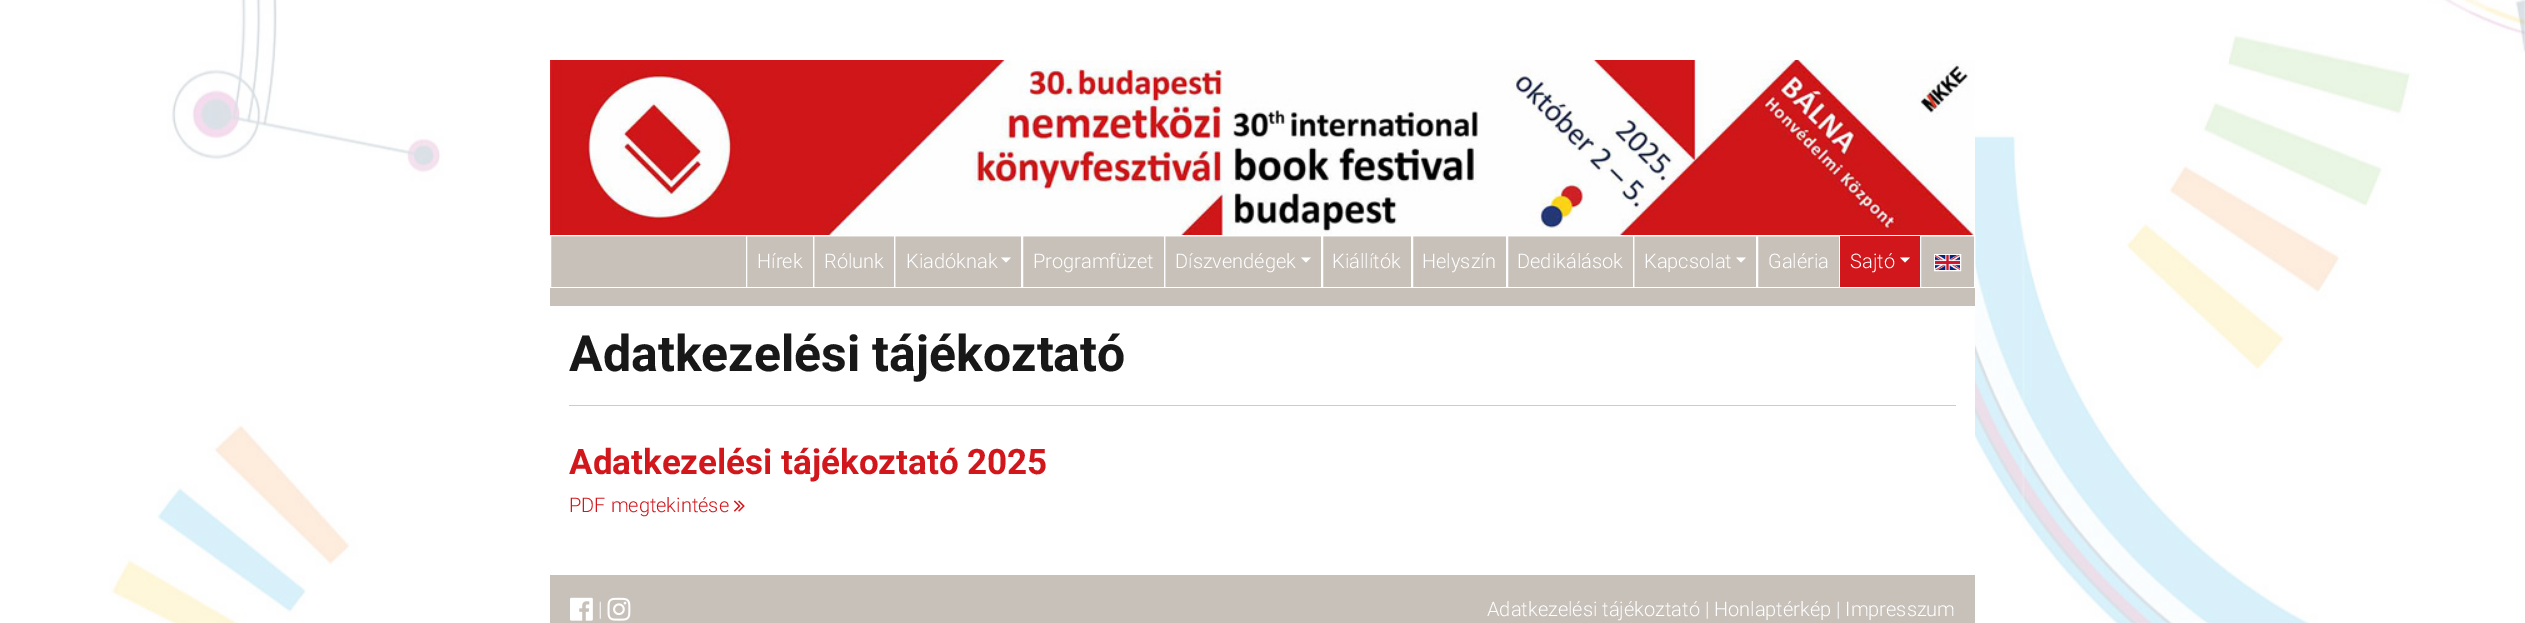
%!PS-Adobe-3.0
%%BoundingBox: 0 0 2525 623
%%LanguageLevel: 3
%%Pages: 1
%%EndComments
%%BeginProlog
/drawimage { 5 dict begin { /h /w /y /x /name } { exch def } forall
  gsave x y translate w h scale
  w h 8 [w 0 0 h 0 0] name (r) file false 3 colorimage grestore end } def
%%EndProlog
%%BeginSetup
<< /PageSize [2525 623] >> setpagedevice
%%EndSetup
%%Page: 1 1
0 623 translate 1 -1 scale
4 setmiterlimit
1 setgray
0 0 2525 623 rectfill
(images/1.raw) 109 0 2416 623 drawimage
(images/2.raw) 550 60 1425 175 drawimage
0.784 0.757 0.729 setrgbcolor
newpath 550.5 235.5 moveto 1974.5 235.5 lineto 1974.5 287.5 lineto 550.5 287.5 lineto closepath gsave fill grestore
1 setgray
stroke
746.5 235.5 67 52 rectstroke
813.5 235.5 81 52 rectstroke
1021.5 235.5 143 52 rectstroke
894.5 235.5 128 52 rectstroke
newpath 1001 257.5 moveto 1011 257.5 lineto 1006 262.5 lineto closepath fill
1321.5 235.5 91 52 rectstroke
1164.5 235.5 158 52 rectstroke
newpath 1301 257.5 moveto 1311 257.5 lineto 1306 262.5 lineto closepath fill
1411.5 235.5 96 52 rectstroke
1506.5 235.5 127 52 rectstroke
1756.5 235.5 83 52 rectstroke
1633.5 235.5 124 52 rectstroke
newpath 1736 257.5 moveto 1746 257.5 lineto 1741 262.5 lineto closepath fill
0.82 0.09 0.11 setrgbcolor
1840 236 80 51 rectfill
1 setgray
newpath 1900 257.5 moveto 1910 257.5 lineto 1905 262.5 lineto closepath fill
1920.5 235.5 54 52 rectstroke
1934.5 254.5 26 16 rectstroke
(images/3.raw) 1935 255 25 15 drawimage
0.784 0.757 0.729 setrgbcolor
550 288 1425 18 rectfill
1 setgray
1923 306 52 150 rectfill
0.8 setgray
569 405 1387 1 rectfill
(images/4.raw) 733 500 12 12 drawimage
0.784 0.757 0.729 setrgbcolor
550 575 1425 48 rectfill
(images/5.raw) 570 597 23 24 drawimage
(images/6.raw) 607 597 24 24 drawimage
/Roboto-Light [20 0 0 -20 0 0] selectfont
1 setgray
757 268 moveto (Hírek) show
824 268 moveto (Rólunk) show
906 268 moveto (Kiadóknak) show
1033 268 moveto (Programfüzet) show
1175 268 moveto (Díszvendégek) show
1332 268 moveto (Kiállítók) show
1422 268 moveto (Helyszín) show
1517 268 moveto (Dedikálások) show
1644 268 moveto (Kapcsolat) show
1768 268 moveto (Galéria) show
1850 268 moveto (Sajtó) show
/Roboto-Bold [50 0 0 -50 0 0] selectfont
0.094 setgray
569 371 moveto (Adatkezelési tájékoztató) show
/Roboto-Bold [35 0 0 -35 0 0] selectfont
0.82 0.09 0.11 setrgbcolor
569 474 moveto (Adatkezelési tájékoztató 2025) show
/Roboto-Light [20 0 0 -20 0 0] selectfont
569 512 moveto (PDF megtekintése) show
1 setgray
598 616 moveto (|) show
1487 616 moveto (Adatkezelési tájékoztató | Honlaptérkép | Impresszum) show
showpage
%%EOF
